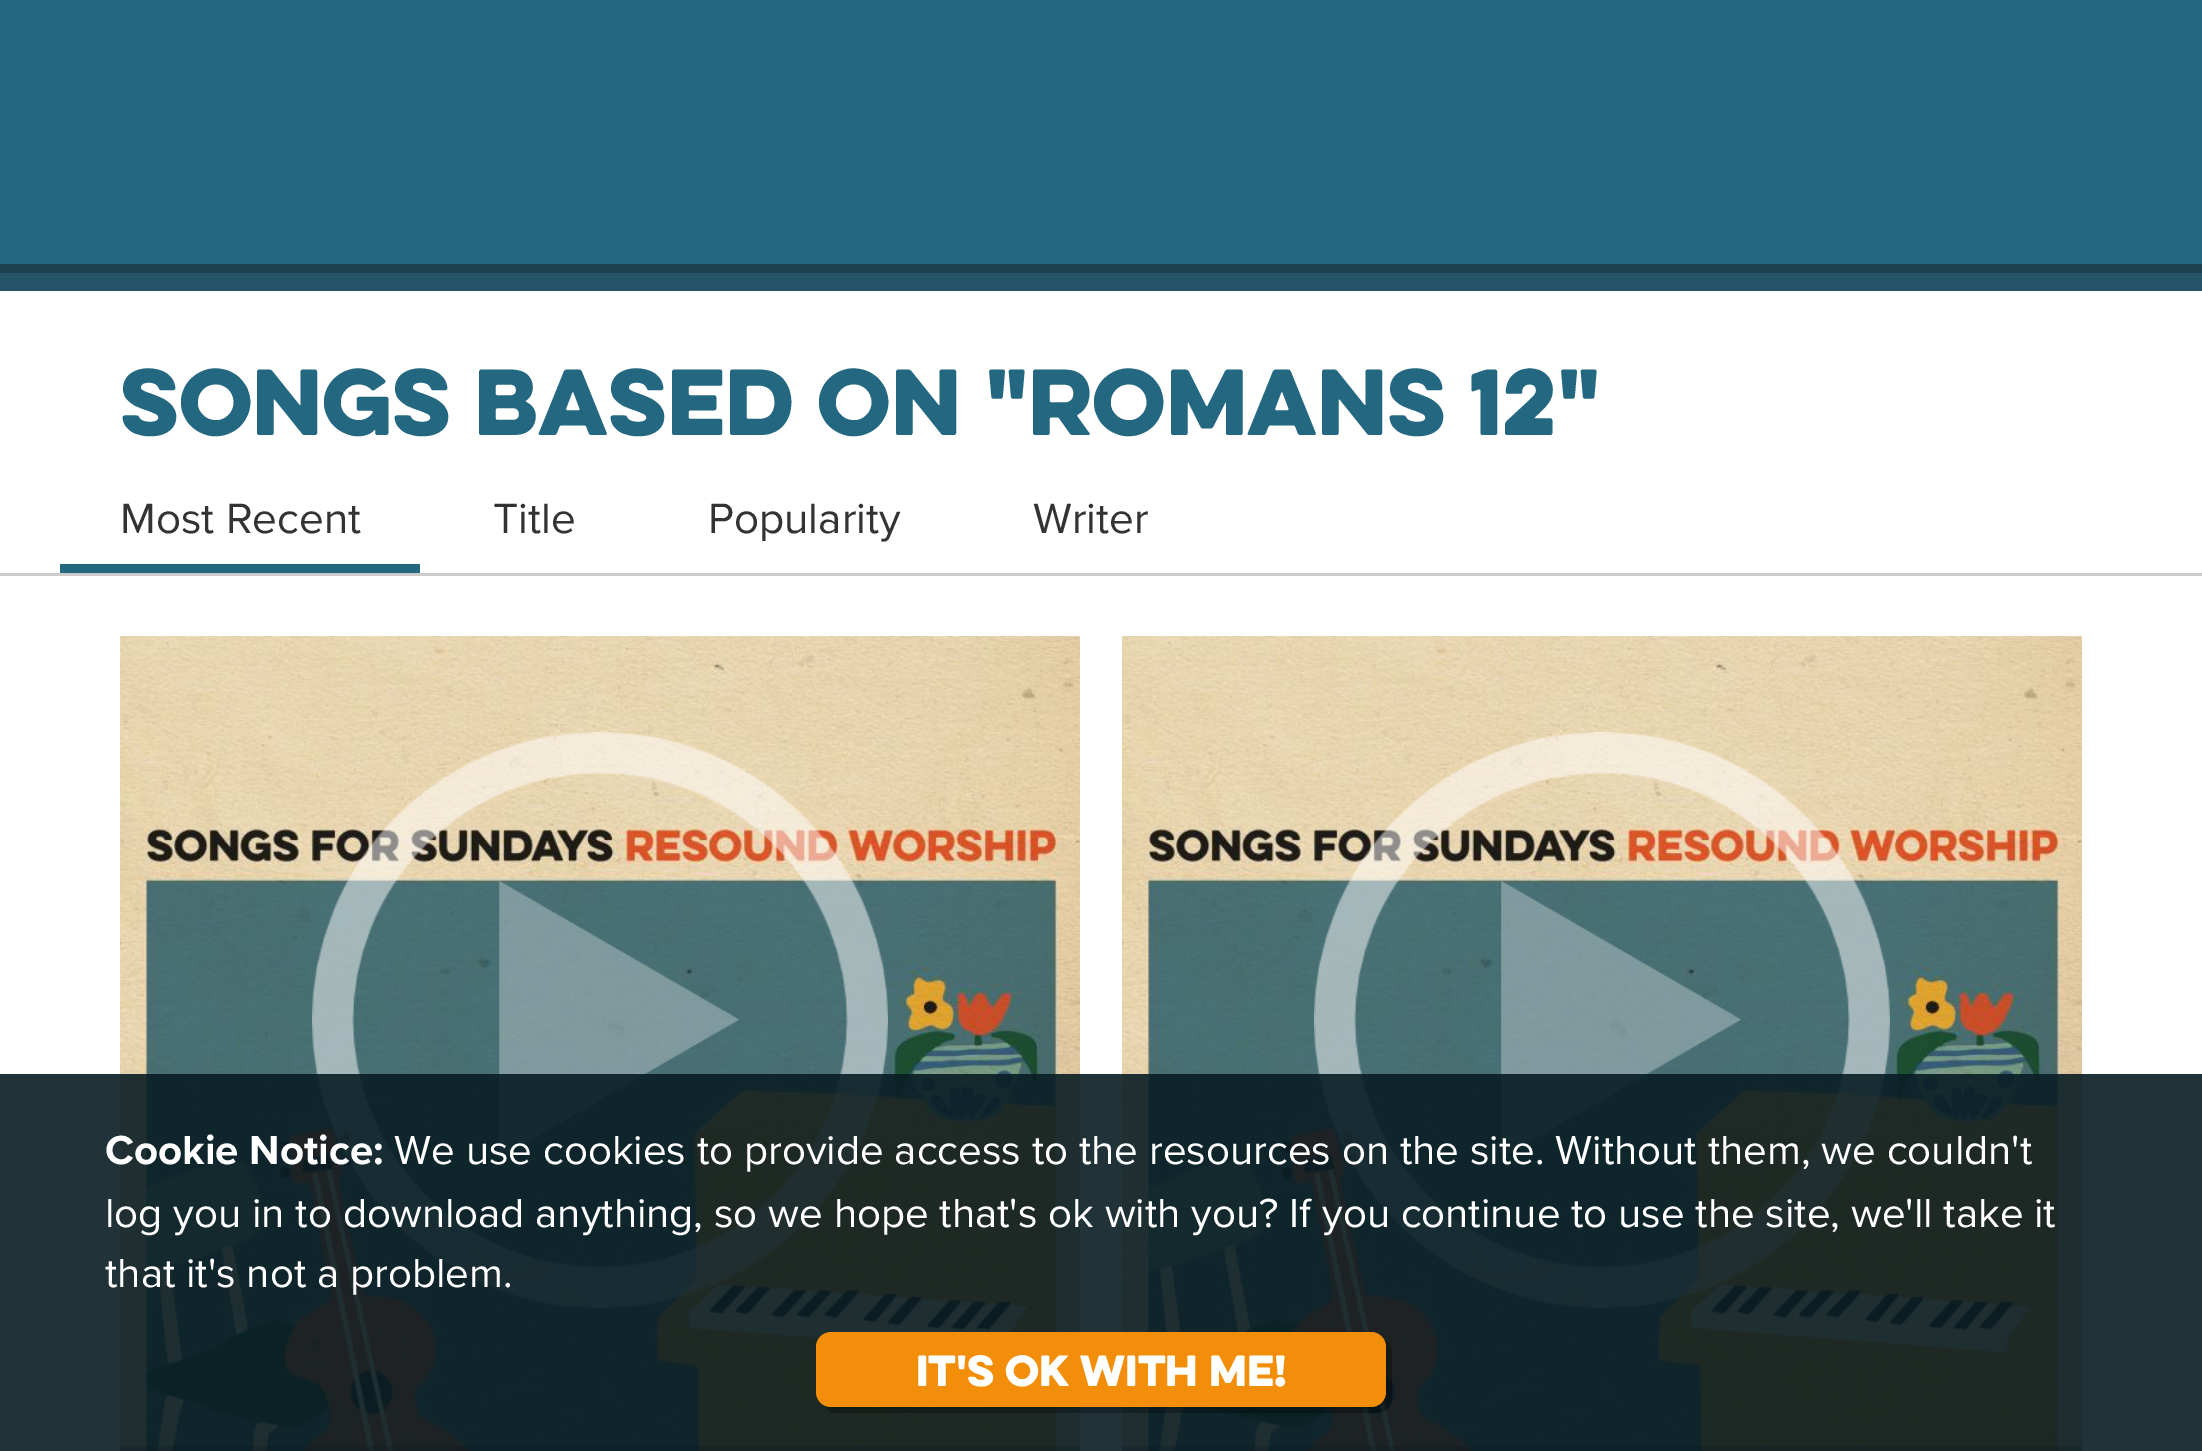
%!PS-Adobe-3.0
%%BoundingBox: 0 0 2202 1451
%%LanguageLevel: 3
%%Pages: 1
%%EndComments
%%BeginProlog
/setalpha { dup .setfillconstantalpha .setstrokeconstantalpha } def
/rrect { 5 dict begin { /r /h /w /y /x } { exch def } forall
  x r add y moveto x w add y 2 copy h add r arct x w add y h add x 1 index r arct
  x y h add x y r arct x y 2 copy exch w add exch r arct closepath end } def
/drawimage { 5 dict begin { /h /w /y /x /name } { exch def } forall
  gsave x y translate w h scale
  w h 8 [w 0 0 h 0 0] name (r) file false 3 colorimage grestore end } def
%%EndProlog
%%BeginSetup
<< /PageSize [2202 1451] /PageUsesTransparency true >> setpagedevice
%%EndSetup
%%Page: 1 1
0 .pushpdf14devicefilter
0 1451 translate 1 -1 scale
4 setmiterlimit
1 setgray
0 0 2202 1451 rectfill
0.118 0.259 0.322 setrgbcolor
0 264 2202 9 rectfill
0.137 0.408 0.502 setrgbcolor
0 0 2202 264 rectfill
0.145 0.325 0.404 setrgbcolor
0 273 2202 18 rectfill
0.8 setgray
0 573 2202 3 rectfill
0.137 0.408 0.502 setrgbcolor
60 564 360 9 rectfill
(images/1.raw) 120 636 960 815 drawimage
(images/2.raw) 499 881 241 278 drawimage
(images/3.raw) 312 732 576 576 drawimage
0.3 setalpha
0 setgray
120 1446 960 5 rectfill
1 setalpha
(images/4.raw) 1122 636 960 815 drawimage
(images/5.raw) 1501 881 241 278 drawimage
(images/6.raw) 1314 732 576 576 drawimage
0.3 setalpha
1122 1446 960 5 rectfill
0.9 setalpha
0.035 0.114 0.141 setrgbcolor
0 1074 2202 377 rectfill
0.3 setalpha
0 setgray
newpath 824 1405 moveto 826 1410 831 1413 837 1413 curveto 1377 1413 lineto 1385 1413 1392 1406 1392 1398 curveto 1392 1353 lineto 1392 1347 1389 1342 1384 1340 curveto 1385 1342 1386 1344 1386 1347 curveto 1386 1392 lineto 1386 1400 1379 1407 1371 1407 curveto 831 1407 lineto 828 1407 826 1406 824 1405 curveto closepath fill
1 setalpha
0.949 0.557 0.035 setrgbcolor
816 1332 570 75 15 rrect fill
/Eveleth-Black [84 0 0 -84 0 0] selectfont
0.137 0.408 0.502 setrgbcolor
120 435 moveto (Songs based on "Romans 12") show
/ProximaNova-Regular [44 0 0 -44 0 0] selectfont
0.2 setgray
120 533 moveto (Most Recent) show
493 533 moveto (Title) show
708 533 moveto (Popularity) show
1033 533 moveto (Writer) show
/ProximaNova-Bold [42 0 0 -42 0 0] selectfont
1 setgray
105 1164 moveto (Cookie Notice:) show
/ProximaNova-Regular [42 0 0 -42 0 0] selectfont
394 1164 moveto (We use cookies to provide access to the resources on the site. Without them, we couldn't) show
105 1227 moveto (log you in to download anything, so we hope that's ok with you? If you continue to use the site, we'll take it) show
105 1287 moveto (that it's not a problem.) show
/Eveleth-Black [39 0 0 -39 0 0] selectfont
916 1386 moveto (It's ok with me!) show
.poppdf14devicefilter showpage
%%EOF
